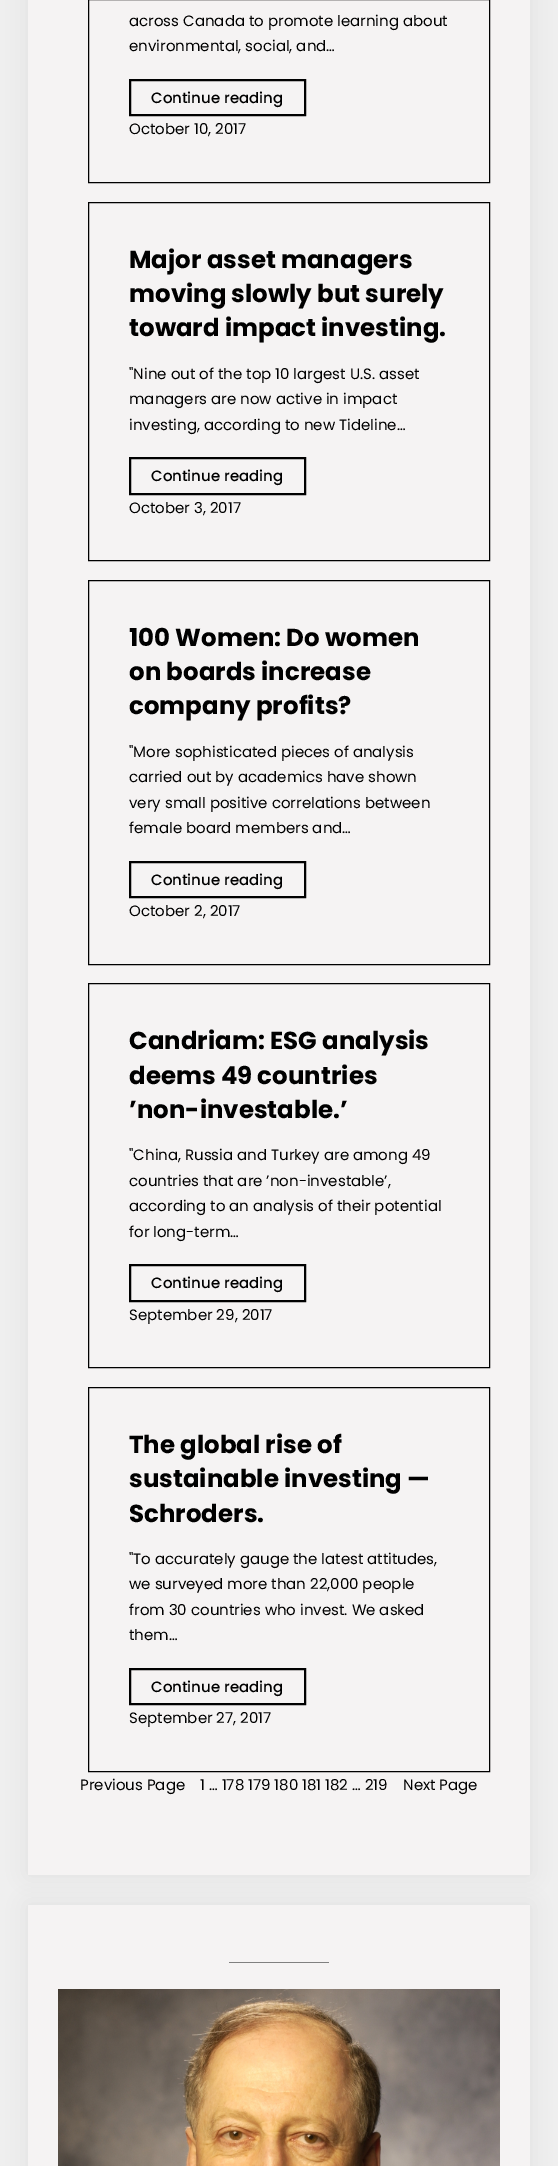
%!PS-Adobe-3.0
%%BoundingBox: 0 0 558 2166
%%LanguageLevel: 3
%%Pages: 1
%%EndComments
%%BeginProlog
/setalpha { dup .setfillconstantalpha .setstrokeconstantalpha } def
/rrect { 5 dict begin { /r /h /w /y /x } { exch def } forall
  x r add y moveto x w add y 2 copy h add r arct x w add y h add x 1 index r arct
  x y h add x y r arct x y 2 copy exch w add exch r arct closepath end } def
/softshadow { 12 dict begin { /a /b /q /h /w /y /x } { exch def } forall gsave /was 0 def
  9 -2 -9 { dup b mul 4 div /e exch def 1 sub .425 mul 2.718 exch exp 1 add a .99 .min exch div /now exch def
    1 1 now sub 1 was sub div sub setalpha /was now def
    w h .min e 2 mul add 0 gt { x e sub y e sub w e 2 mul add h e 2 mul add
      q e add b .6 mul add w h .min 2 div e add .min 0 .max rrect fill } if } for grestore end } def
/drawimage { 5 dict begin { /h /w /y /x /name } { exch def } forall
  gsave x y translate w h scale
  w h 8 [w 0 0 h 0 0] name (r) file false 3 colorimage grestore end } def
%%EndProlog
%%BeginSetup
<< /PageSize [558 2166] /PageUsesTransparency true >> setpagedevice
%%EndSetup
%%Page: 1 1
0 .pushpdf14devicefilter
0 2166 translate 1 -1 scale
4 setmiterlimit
0.937 setgray
0 0 558 2166 rectfill
0.122 0.114 0.114 setrgbcolor
28 -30 502 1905 0 10 0.07 softshadow
0.961 0.953 0.953 setrgbcolor
28 0 502 1875 rectfill
0 setgray
88.5 -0.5 401 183 rectstroke
2 setlinewidth
130 80 175 35 rectstroke
1 setlinewidth
88.5 202.5 401 358 rectstroke
2 setlinewidth
130 458 175 36 rectstroke
1 setlinewidth
88.5 580.5 401 384 rectstroke
2 setlinewidth
130 862 175 35 rectstroke
1 setlinewidth
88.5 983.5 401 384 rectstroke
2 setlinewidth
130 1265 175 36 rectstroke
1 setlinewidth
88.5 1387.5 401 384 rectstroke
2 setlinewidth
130 1669 175 35 rectstroke
0.122 0.114 0.114 setrgbcolor
28 1905 502 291 0 10 0.07 softshadow
0.961 0.953 0.953 setrgbcolor
28 1905 502 261 rectfill
0.502 setgray
229 1962 100 1 rectfill
(images/1.raw) 58 1989 442 177 drawimage
/Poppins-Regular [15 0 0 -15 0 0] selectfont
0 setgray
129 26 moveto (across Canada to promote learning about) show
129 51 moveto (environmental, social, and…) show
/Poppins-Medium [15 0 0 -15 0 0] selectfont
151 103 moveto (Continue reading) show
/Poppins-Regular [15 0 0 -15 0 0] selectfont
129 134 moveto (October 10, 2017) show
/Poppins-Bold [24.5 0 0 -24.5 0 0] selectfont
129 268 moveto (Major asset managers) show
129 302 moveto (moving slowly but surely) show
129 336 moveto (toward impact investing.) show
/Poppins-Regular [15 0 0 -15 0 0] selectfont
129 379 moveto ("Nine out of the top 10 largest U.S. asset) show
129 404 moveto (managers are now active in impact) show
129 430 moveto (investing, according to new Tideline…) show
/Poppins-Medium [15 0 0 -15 0 0] selectfont
151 481 moveto (Continue reading) show
/Poppins-Regular [15 0 0 -15 0 0] selectfont
129 513 moveto (October 3, 2017) show
/Poppins-Bold [24.5 0 0 -24.5 0 0] selectfont
129 646 moveto (100 Women: Do women) show
129 680 moveto (on boards increase) show
129 714 moveto (company profits?) show
/Poppins-Regular [15 0 0 -15 0 0] selectfont
129 757 moveto ("More sophisticated pieces of analysis) show
129 782 moveto (carried out by academics have shown) show
129 808 moveto (very small positive correlations between) show
129 833 moveto (female board members and…) show
/Poppins-Medium [15 0 0 -15 0 0] selectfont
151 885 moveto (Continue reading) show
/Poppins-Regular [15 0 0 -15 0 0] selectfont
129 916 moveto (October 2, 2017) show
/Poppins-Bold [24.5 0 0 -24.5 0 0] selectfont
129 1049 moveto (Candriam: ESG analysis) show
129 1084 moveto (deems 49 countries) show
129 1118 moveto (’non-investable.’) show
/Poppins-Regular [15 0 0 -15 0 0] selectfont
129 1160 moveto ("China, Russia and Turkey are among 49) show
129 1186 moveto (countries that are ’non-investable’,) show
129 1211 moveto (according to an analysis of their potential) show
129 1237 moveto (for long-term…) show
/Poppins-Medium [15 0 0 -15 0 0] selectfont
151 1288 moveto (Continue reading) show
/Poppins-Regular [15 0 0 -15 0 0] selectfont
129 1320 moveto (September 29, 2017) show
/Poppins-Bold [24.5 0 0 -24.5 0 0] selectfont
129 1453 moveto (The global rise of) show
129 1487 moveto (sustainable investing —) show
129 1522 moveto (Schroders.) show
/Poppins-Regular [15 0 0 -15 0 0] selectfont
129 1564 moveto ("To accurately gauge the latest attitudes,) show
129 1589 moveto (we surveyed more than 22,000 people) show
129 1615 moveto (from 30 countries who invest. We asked) show
129 1640 moveto (them…) show
/Poppins-Medium [15 0 0 -15 0 0] selectfont
151 1692 moveto (Continue reading) show
/Poppins-Regular [15 0 0 -15 0 0] selectfont
129 1723 moveto (September 27, 2017) show
80 1790 moveto (Previous Page) show
200 1790 moveto (1 … 178 179 180 181 182 … 219) show
403 1790 moveto (Next Page) show
.poppdf14devicefilter showpage
%%EOF
